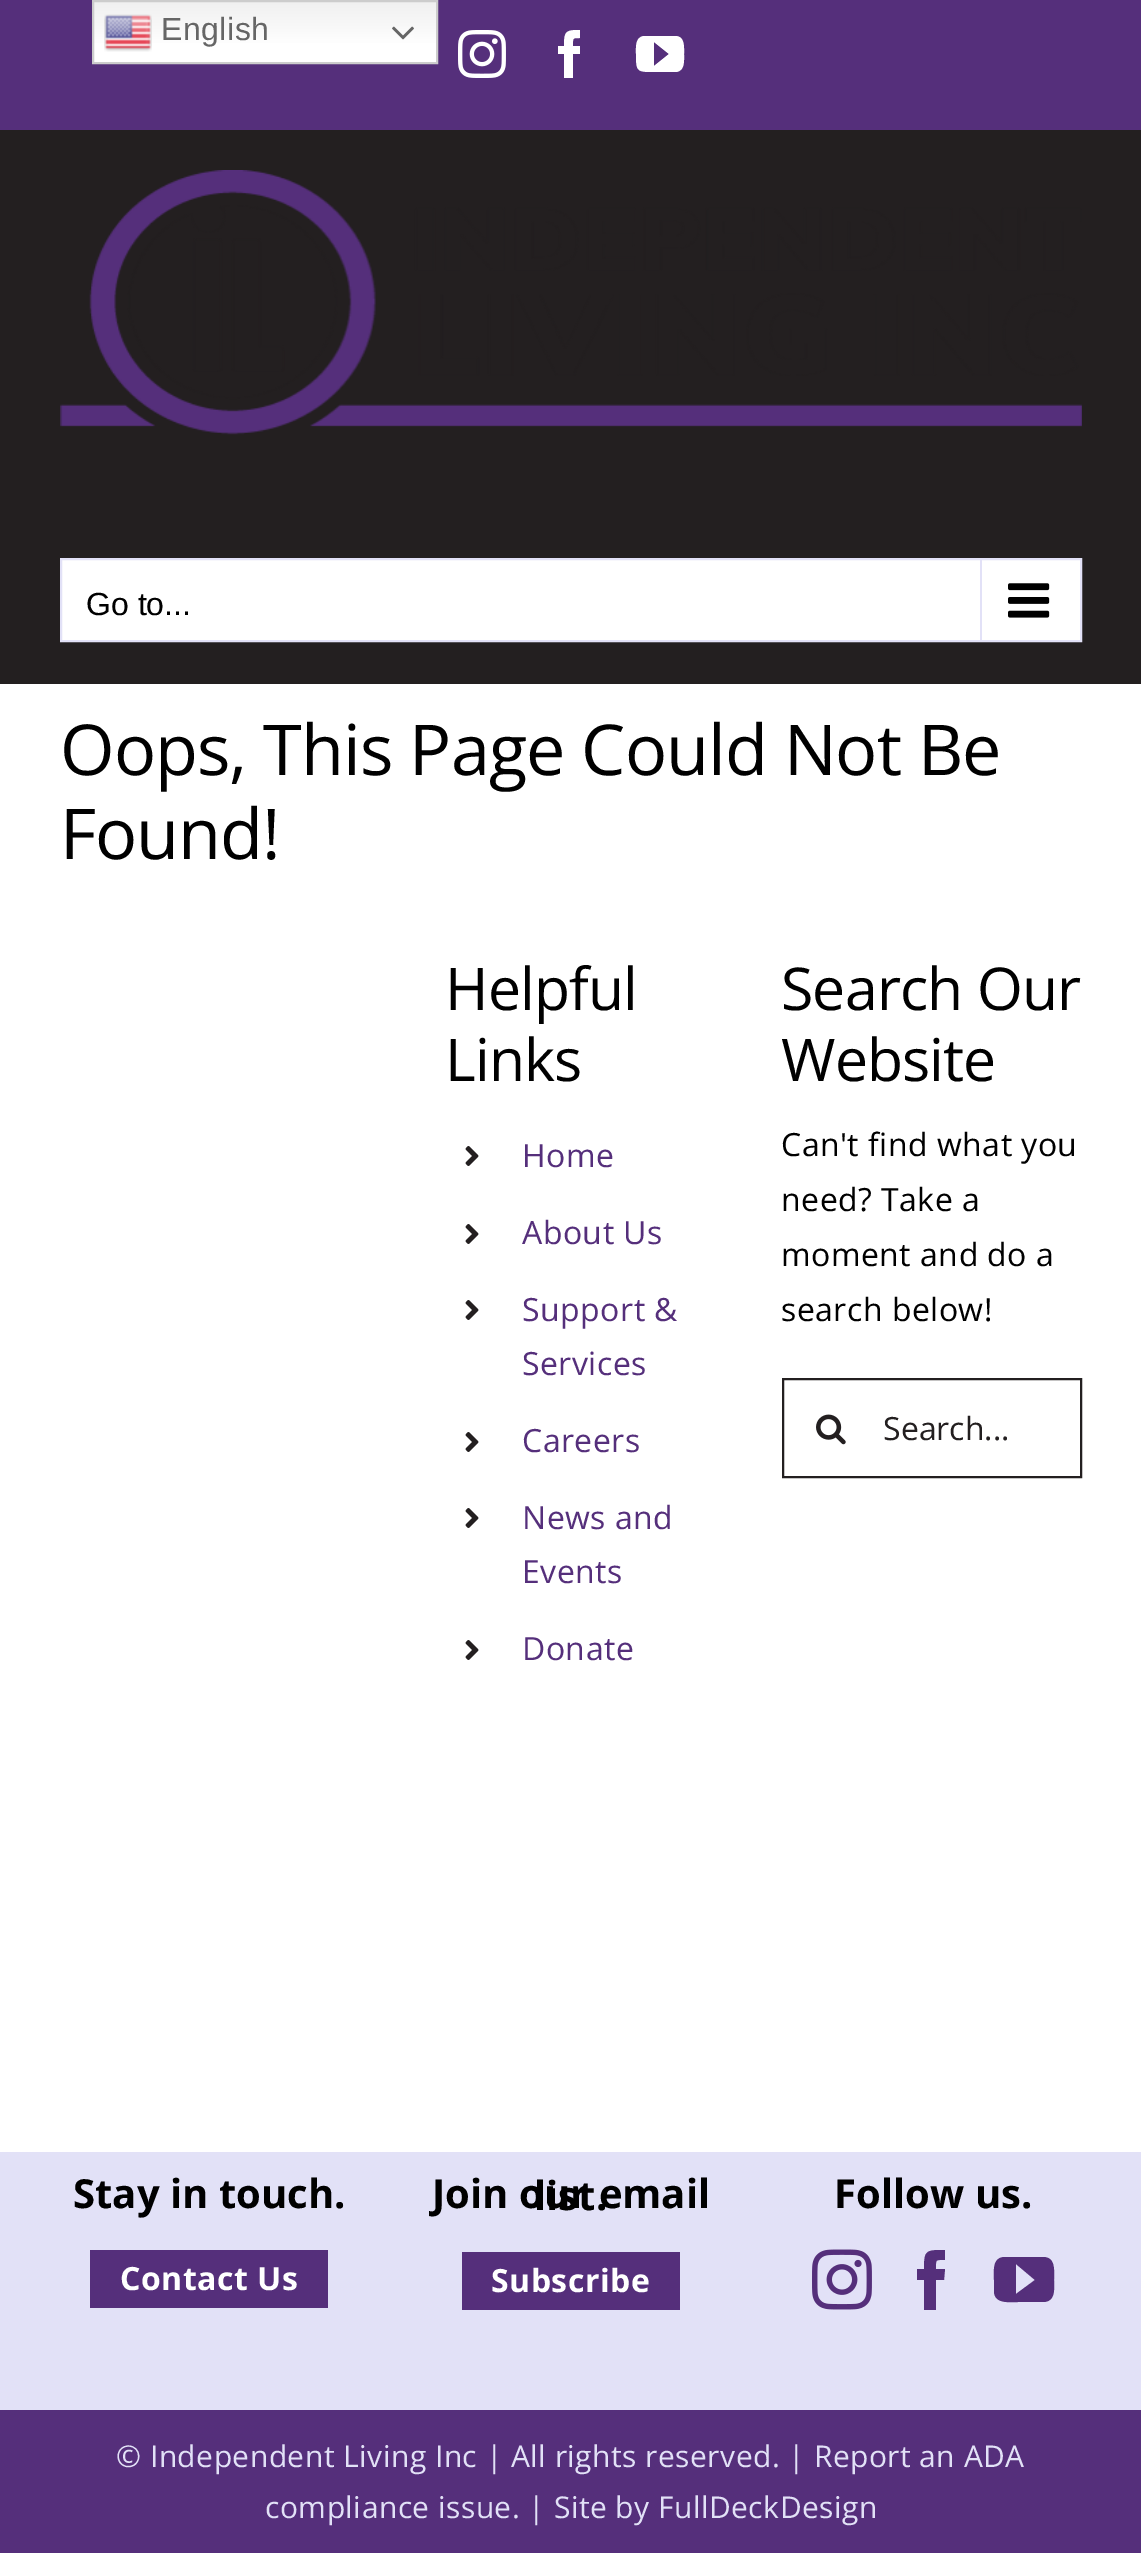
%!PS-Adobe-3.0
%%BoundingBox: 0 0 1141 2553
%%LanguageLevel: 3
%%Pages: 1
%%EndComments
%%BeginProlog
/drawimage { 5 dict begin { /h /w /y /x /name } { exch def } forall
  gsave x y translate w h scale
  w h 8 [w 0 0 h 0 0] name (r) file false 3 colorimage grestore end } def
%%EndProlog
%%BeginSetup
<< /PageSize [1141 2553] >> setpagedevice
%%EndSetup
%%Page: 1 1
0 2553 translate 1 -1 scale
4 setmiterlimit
1 setgray
0 0 1141 2553 rectfill
0.333 0.184 0.482 setrgbcolor
0 0 1141 130 rectfill
gsave newpath 94 2 moveto 436 2 lineto 436 62 lineto 94 62 lineto closepath clip newpath
<< /ShadingType 2 /ColorSpace /DeviceRGB /Coords [265 0 265 64] /Extend [true true] /Function << /FunctionType 3 /Domain [0 1] /Functions [<< /FunctionType 2 /Domain [0 1] /C0 [0.937 0.937 0.937] /C1 [1 1 1] /N 1 >> << /FunctionType 2 /Domain [0 1] /C0 [1 1 1] /C1 [1 1 1] /N 1 >>] /Bounds [0.7] /Encode [0 1 0 1] >> >> shfill grestore
0.8 setgray
2 setlinewidth
93 1 344 62 rectstroke
(images/1.raw) 104 14 48 38 drawimage
(images/2.raw) 392 26 22 14 drawimage
(images/3.raw) 458 30 48 48 drawimage
1 setgray
newpath 573 78 moveto 564 78 lineto 564 54 lineto 558 54 lineto 558 46 lineto 564 46 lineto 564 31 566 30 580 30 curveto 580 38 lineto 572 38 573 38 573 46 curveto 580 46 lineto 580 54 lineto 573 54 lineto closepath fill
newpath 675 36 moveto 644 36 lineto 635 37 636 47 636 54 curveto 636 72 637 72 655 72 curveto 676 72 lineto 685 71 684 61 684 54 curveto 684 47 685 36 675 36 curveto closepath 654 66 moveto 654 42 lineto 669 54 lineto closepath fill
0.137 0.122 0.125 setrgbcolor
0 130 1141 554 rectfill
(images/4.raw) 60 170 1022 265 drawimage
1 setgray
newpath 61 559 moveto 1081 559 lineto 1081 641 lineto 61 641 lineto closepath gsave fill grestore
0.886 0.882 0.969 setrgbcolor
stroke
980 560 2 80 rectfill
(images/5.raw) 1008 583 42 35 drawimage
(images/6.raw) 465 1146 14 20 drawimage
(images/6.raw) 465 1224 14 20 drawimage
(images/6.raw) 465 1300 14 20 drawimage
(images/6.raw) 465 1432 14 20 drawimage
(images/6.raw) 465 1508 14 20 drawimage
(images/6.raw) 465 1640 14 20 drawimage
0.137 0.122 0.125 setrgbcolor
783 1379 298 98 rectstroke
(images/7.raw) 816 1414 30 31 drawimage
0.886 0.882 0.969 setrgbcolor
0 2152 1141 258 rectfill
0.333 0.184 0.482 setrgbcolor
90 2250 238 58 rectfill
462 2252 218 58 rectfill
(images/8.raw) 812 2249 60 61 drawimage
newpath 936 2310 moveto 924 2310 lineto 924 2280 lineto 917 2280 lineto 917 2269 lineto 924 2269 lineto 924 2250 926 2250 945 2250 curveto 945 2260 lineto 935 2260 936 2259 936 2269 curveto 945 2269 lineto 944 2280 lineto 936 2280 lineto closepath fill
newpath 1043 2257 moveto 1004 2257 lineto 992 2258 994 2271 994 2280 curveto 994 2292 lineto 995 2304 1009 2302 1018 2302 curveto 1044 2302 lineto 1056 2301 1054 2288 1054 2280 curveto 1054 2271 1056 2257 1043 2257 curveto closepath 1016 2294 moveto 1016 2264 lineto 1035 2280 lineto closepath fill
0 2410 1141 143 rectfill
/LiberationSans-Regular [32 0 0 -32 0 0] selectfont
0.4 setgray
161 40 moveto 0.48 0 (English) ashow
0 setgray
86 615 moveto (Go to...) show
/OpenSans-Regular [70.25 0 0 -70.25 0 0] selectfont
60 775 moveto -1.05 0 (Oops, This Page Could Not Be) ashow
60 859 moveto -1.05 0 (Found!) ashow
/OpenSans-Regular [59 0 0 -59 0 0] selectfont
445 1010 moveto -0.9 0 (Helpful) ashow
445 1081 moveto -0.9 0 (Links) ashow
/OpenSans-Regular [32 0 0 -32 0 0] selectfont
0.333 0.184 0.482 setrgbcolor
522 1167 moveto 0.48 0 (Home) ashow
522 1244 moveto 0.48 0 (About Us) ashow
522 1321 moveto 0.48 0 (Support &) ashow
522 1375 moveto 0.48 0 (Services) ashow
522 1452 moveto 0.48 0 (Careers) ashow
522 1529 moveto 0.48 0 (News and) ashow
522 1583 moveto 0.48 0 (Events) ashow
522 1660 moveto 0.48 0 (Donate) ashow
/OpenSans-Regular [59 0 0 -59 0 0] selectfont
0 setgray
781 1010 moveto -0.9 0 (Search Our) ashow
781 1081 moveto -0.9 0 (Website) ashow
/OpenSans-Regular [32 0 0 -32 0 0] selectfont
781 1156 moveto 0.48 0 (Can't find what you) ashow
781 1211 moveto 0.48 0 (need? Take a) ashow
781 1266 moveto 0.48 0 (moment and do a) ashow
781 1321 moveto 0.48 0 (search below!) ashow
0.137 0.122 0.125 setrgbcolor
883 1440 moveto (Search...) show
/OpenSans-Bold [40 0 0 -40 0 0] selectfont
0 setgray
73 2208 moveto (Stay in touch.) show
/OpenSans-Bold [32 0 0 -32 0 0] selectfont
1 setgray
120 2290 moveto 0.48 0 (Contact Us) ashow
/OpenSans-Bold [40 0 0 -40 0 0] selectfont
0 setgray
432 2208 moveto (Join our email) show
534 2210 moveto (list.) show
/OpenSans-Bold [32 0 0 -32 0 0] selectfont
1 setgray
491 2292 moveto 0.48 0 (Subscribe) ashow
/OpenSans-Bold [40 0 0 -40 0 0] selectfont
0 setgray
834 2208 moveto (Follow us.) show
/OpenSans-Regular [30 0 0 -30 0 0] selectfont
0.886 0.882 0.969 setrgbcolor
116 2467 moveto 0.48 0 (© Independent Living Inc | All rights reserved. | Report an ADA) ashow
265 2518 moveto 0.48 0 (compliance issue. | Site by FullDeckDesign) ashow
showpage
%%EOF
